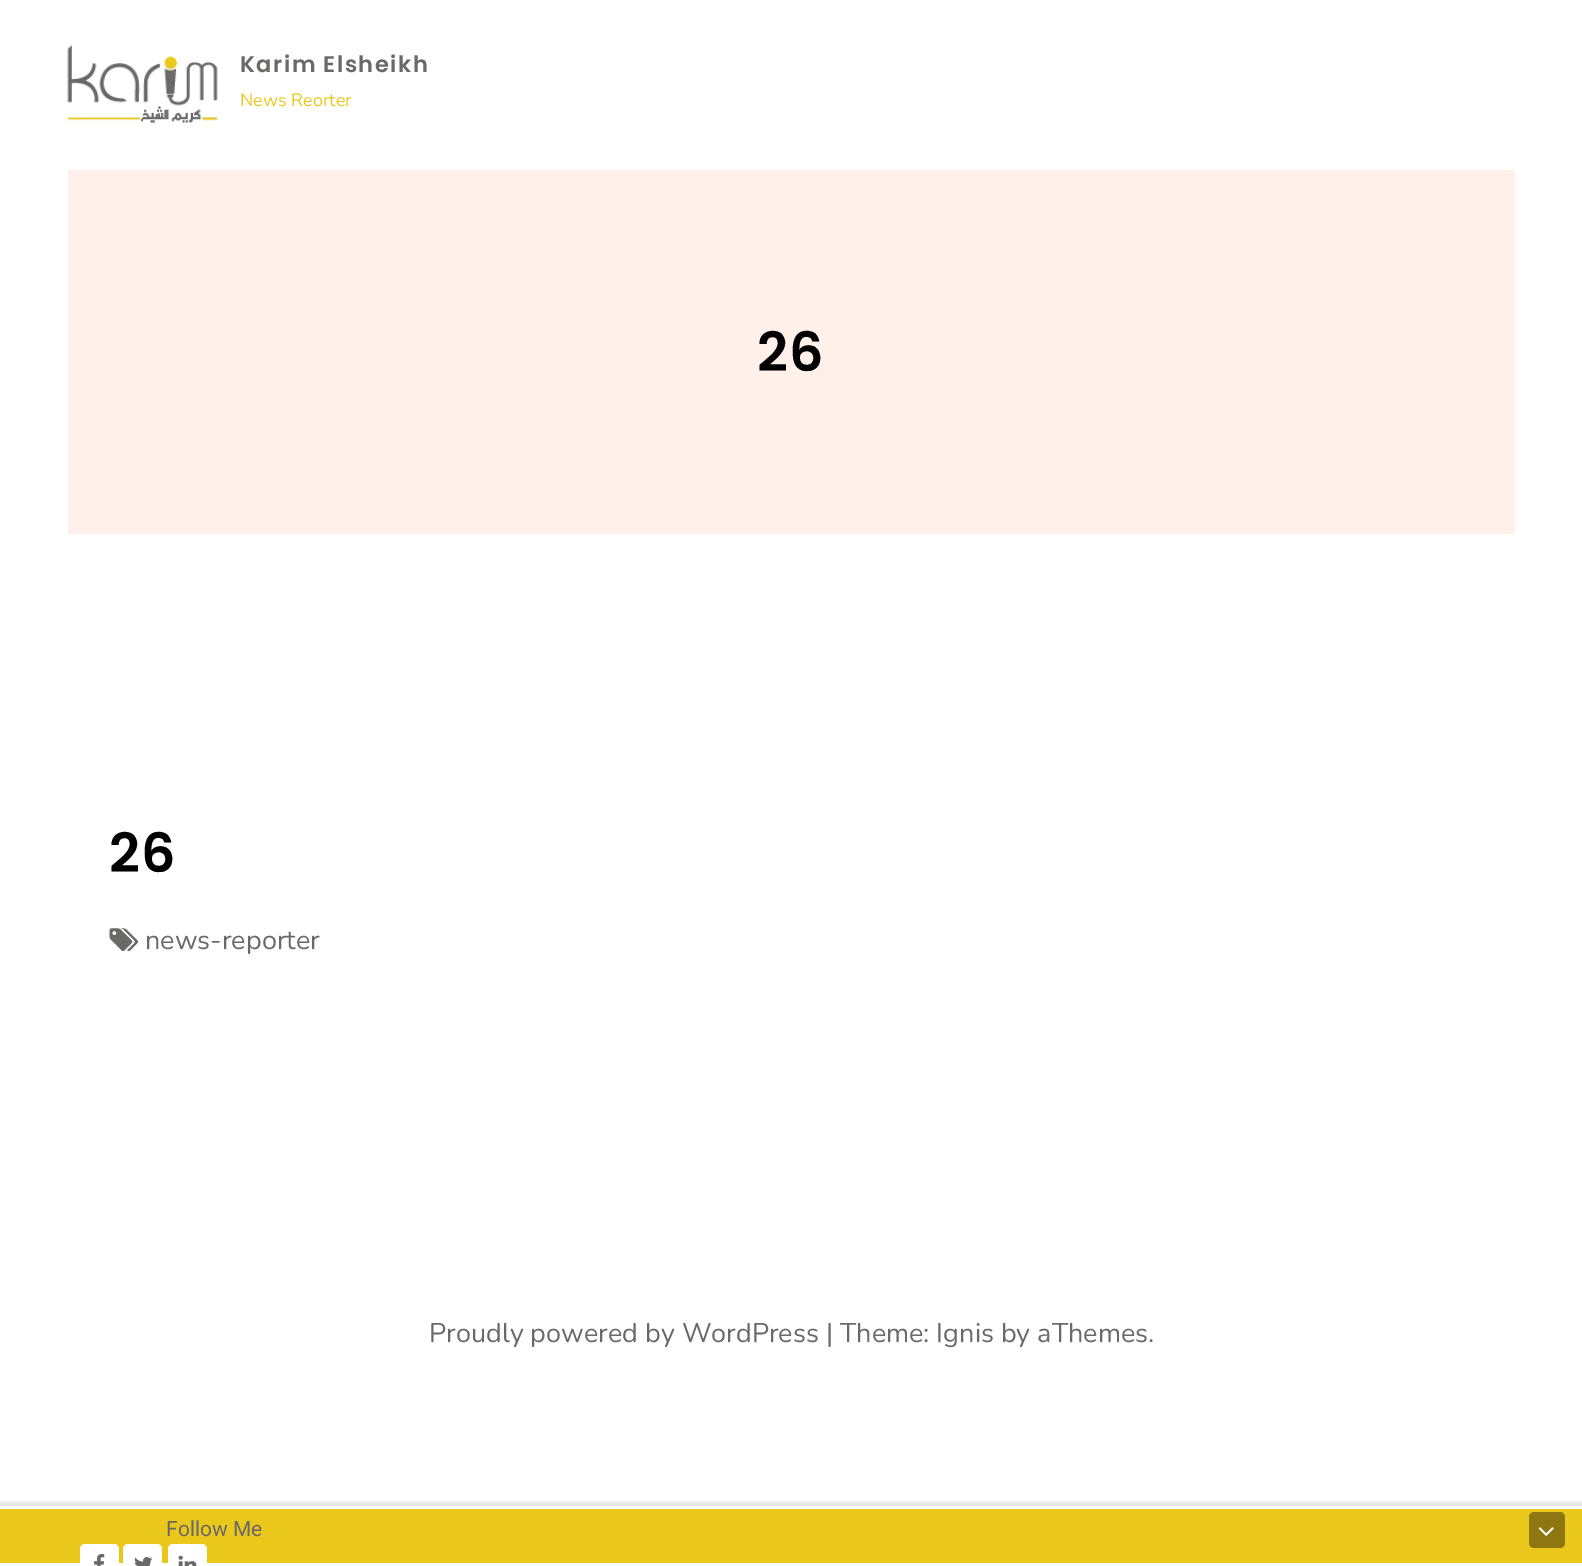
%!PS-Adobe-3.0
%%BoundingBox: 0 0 1582 1566
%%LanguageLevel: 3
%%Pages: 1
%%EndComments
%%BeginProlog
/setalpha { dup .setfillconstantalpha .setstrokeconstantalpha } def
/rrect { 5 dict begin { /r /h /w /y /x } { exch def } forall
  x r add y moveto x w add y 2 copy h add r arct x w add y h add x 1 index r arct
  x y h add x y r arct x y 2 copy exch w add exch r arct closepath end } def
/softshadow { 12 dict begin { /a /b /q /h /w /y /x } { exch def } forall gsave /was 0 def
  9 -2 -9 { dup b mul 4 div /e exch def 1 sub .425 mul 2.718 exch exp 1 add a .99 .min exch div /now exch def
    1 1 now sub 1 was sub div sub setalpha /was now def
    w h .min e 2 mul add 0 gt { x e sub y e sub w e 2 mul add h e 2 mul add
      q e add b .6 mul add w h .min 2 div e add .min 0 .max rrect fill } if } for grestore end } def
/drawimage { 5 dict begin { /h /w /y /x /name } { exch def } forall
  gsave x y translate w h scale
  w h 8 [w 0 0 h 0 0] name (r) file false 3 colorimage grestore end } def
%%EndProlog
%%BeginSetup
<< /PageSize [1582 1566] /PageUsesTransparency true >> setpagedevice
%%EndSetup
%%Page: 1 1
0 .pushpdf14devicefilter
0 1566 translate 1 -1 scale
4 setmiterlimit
1 setgray
0 0 1582 1566 rectfill
(images/1.raw) 67 45 151 79 drawimage
1 0.941 0.918 setrgbcolor
68 170 1447 364 rectfill
(images/2.raw) 109 928 30 24 drawimage
0.89 setgray
-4 1502 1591 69 0 1.5 1 softshadow
0.918 0.78 0.106 setrgbcolor
0 1509 1582 54 rectfill
1 setgray
0 1506 1582 3 rectfill
0 1563 1582 3 rectfill
80 1544 39 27 5 rrect fill
(images/3.raw) 94 1554 11 12 drawimage
123 1544 39 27 5 rrect fill
(images/4.raw) 134 1557 19 9 drawimage
168 1544 39 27 5 rrect fill
(images/5.raw) 178 1555 19 11 drawimage
0.549 0.467 0.063 setrgbcolor
1529 1512 36 36 5 rrect fill
(images/6.raw) 1538 1527 16 9 drawimage
/Poppins-SemiBold [22.5 0 0 -22.5 0 0] selectfont
0.42 0.408 0.408 setrgbcolor
240 72 moveto 1.5 0 (Karim Elsheikh) ashow
/Nunito-Regular [18 0 0 -18 0 0] selectfont
0.918 0.78 0.106 setrgbcolor
240 106 moveto (News Reorter) show
/Poppins-SemiBold [54 0 0 -54 0 0] selectfont
0 setgray
757 371 moveto 1.5 0 (26) ashow
109 872 moveto 1.5 0 (26) ashow
/Nunito-Regular [27 0 0 -27 0 0] selectfont
0.42 0.408 0.408 setrgbcolor
145 949 moveto (news-reporter) show
429 1342 moveto (Proudly powered by WordPress | Theme: Ignis by aThemes.) show
/Roboto-Regular [21 0 0 -21 0 0] selectfont
166 1536 moveto (Follow Me) show
.poppdf14devicefilter showpage
%%EOF
